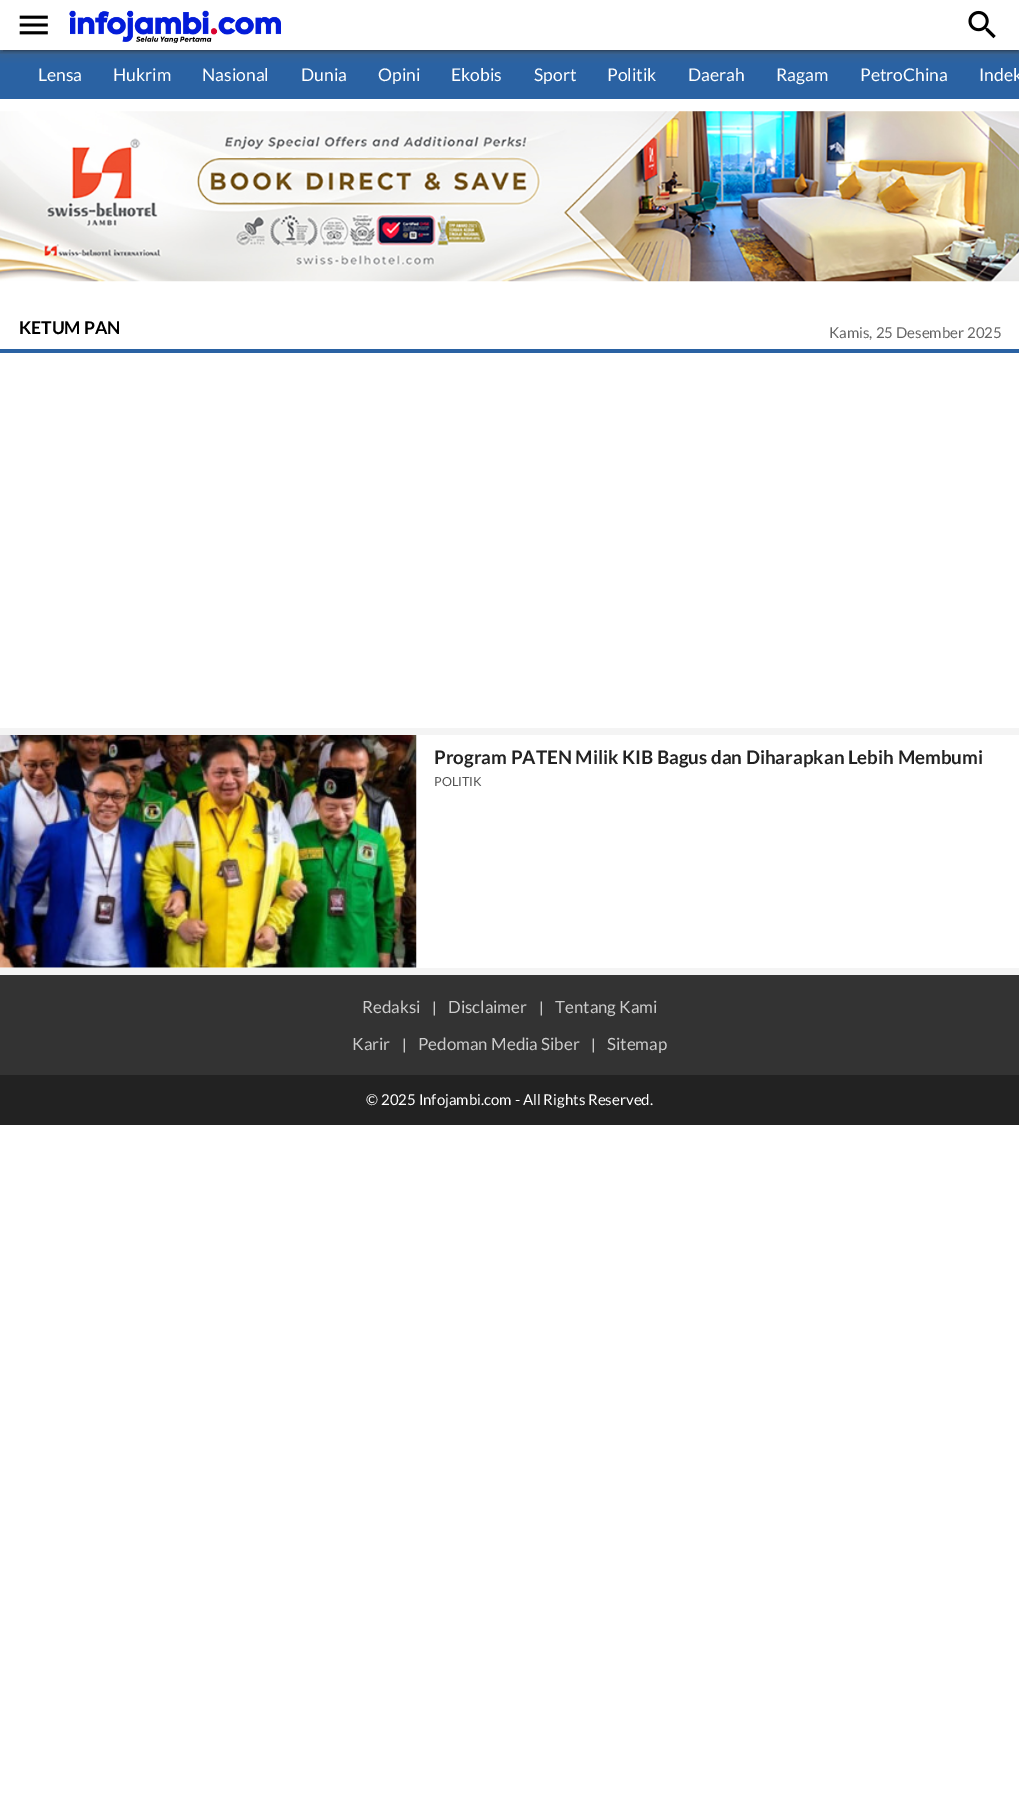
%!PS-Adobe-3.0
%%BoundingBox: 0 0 1019 1820
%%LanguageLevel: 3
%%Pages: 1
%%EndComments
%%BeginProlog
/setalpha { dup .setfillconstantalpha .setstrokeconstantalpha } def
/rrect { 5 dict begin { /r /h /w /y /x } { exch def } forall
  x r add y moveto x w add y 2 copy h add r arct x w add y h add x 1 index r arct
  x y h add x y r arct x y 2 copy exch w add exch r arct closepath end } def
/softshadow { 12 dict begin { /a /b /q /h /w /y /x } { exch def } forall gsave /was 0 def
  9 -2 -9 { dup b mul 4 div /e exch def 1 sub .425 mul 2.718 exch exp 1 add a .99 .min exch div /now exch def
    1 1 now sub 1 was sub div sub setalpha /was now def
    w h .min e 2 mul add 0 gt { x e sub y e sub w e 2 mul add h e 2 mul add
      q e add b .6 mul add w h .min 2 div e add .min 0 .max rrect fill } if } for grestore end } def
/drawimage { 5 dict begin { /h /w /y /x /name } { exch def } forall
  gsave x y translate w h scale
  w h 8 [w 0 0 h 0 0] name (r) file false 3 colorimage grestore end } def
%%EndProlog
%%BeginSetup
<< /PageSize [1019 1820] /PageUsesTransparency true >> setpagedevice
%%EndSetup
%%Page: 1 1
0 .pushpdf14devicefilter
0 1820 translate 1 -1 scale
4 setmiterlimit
1 setgray
0 0 1019 1820 rectfill
0.165 0.384 0.639 setrgbcolor
0 50 1019 49 rectfill
gsave
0 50 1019 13 rectclip
0.38 setgray
-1 -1 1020 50 0 7 1 softshadow
grestore
gsave
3 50 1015 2 rectclip
0 setgray
3 6 1015 45 0 0.5 0.2 softshadow
grestore
gsave
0 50 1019 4 rectclip
0 setgray
0 3 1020 50 0 1 0.14 softshadow
grestore
(images/1.raw) 19 15 29 20 drawimage
(images/2.raw) 69 10 212 33 drawimage
(images/3.raw) 968 10 28 29 drawimage
(images/4.raw) 0 111 1019 171 drawimage
0 349 1019 4 rectfill
0.957 setgray
0 728 1019 7 rectfill
0 968 1019 7 rectfill
(images/5.raw) 0 735 417 233 drawimage
0.133 setgray
0 1075 1019 50 rectfill
0.2 setgray
0 975 1019 100 rectfill
/Lato-Regular [17.5 0 0 -17.5 0 0] selectfont
1 setgray
38 81 moveto (Lensa) show
113 81 moveto (Hukrim) show
202 81 moveto (Nasional) show
301 81 moveto (Dunia) show
378 81 moveto (Opini) show
451 81 moveto (Ekobis) show
534 81 moveto (Sport) show
607 81 moveto (Politik) show
688 81 moveto (Daerah) show
776 81 moveto (Ragam) show
860 81 moveto (PetroChina) show
979 81 moveto (Indek) show
/Lato-Bold [17.5 0 0 -17.5 0 0] selectfont
0 setgray
19 334 moveto (KETUM PAN) show
/Lato-Regular [15 0 0 -15 0 0] selectfont
0.4 setgray
829 338 moveto (Kamis, 25 Desember 2025) show
/Lato-Bold [18.75 0 0 -18.75 0 0] selectfont
0.133 setgray
434 764 moveto (Program PATEN Milik KIB Bagus dan Diharapkan Lebih Membumi) show
/Lato-Regular [12.5 0 0 -12.5 0 0] selectfont
0.333 setgray
434 786 moveto (POLITIK) show
/Lato-Regular [16.9 0 0 -16.9 0 0] selectfont
0.8 setgray
362 1013 moveto (Redaksi) show
/Lato-Regular [15 0 0 -15 0 0] selectfont
1 setgray
432 1013 moveto (|) show
/Lato-Regular [16.9 0 0 -16.9 0 0] selectfont
0.8 setgray
448 1013 moveto (Disclaimer) show
/Lato-Regular [15 0 0 -15 0 0] selectfont
1 setgray
539 1013 moveto (|) show
/Lato-Regular [16.9 0 0 -16.9 0 0] selectfont
0.8 setgray
555 1013 moveto (Tentang Kami) show
352 1050 moveto (Karir) show
/Lato-Regular [15 0 0 -15 0 0] selectfont
1 setgray
402 1050 moveto (|) show
/Lato-Regular [16.9 0 0 -16.9 0 0] selectfont
0.8 setgray
418 1050 moveto (Pedoman Media Siber) show
/Lato-Regular [15 0 0 -15 0 0] selectfont
1 setgray
591 1050 moveto (|) show
/Lato-Regular [16.9 0 0 -16.9 0 0] selectfont
0.8 setgray
607 1050 moveto (Sitemap) show
/Lato-Regular [15 0 0 -15 0 0] selectfont
1 setgray
366 1105 moveto (© 2025 Infojambi.com - All Rights Reserved.) show
.poppdf14devicefilter showpage
%%EOF
